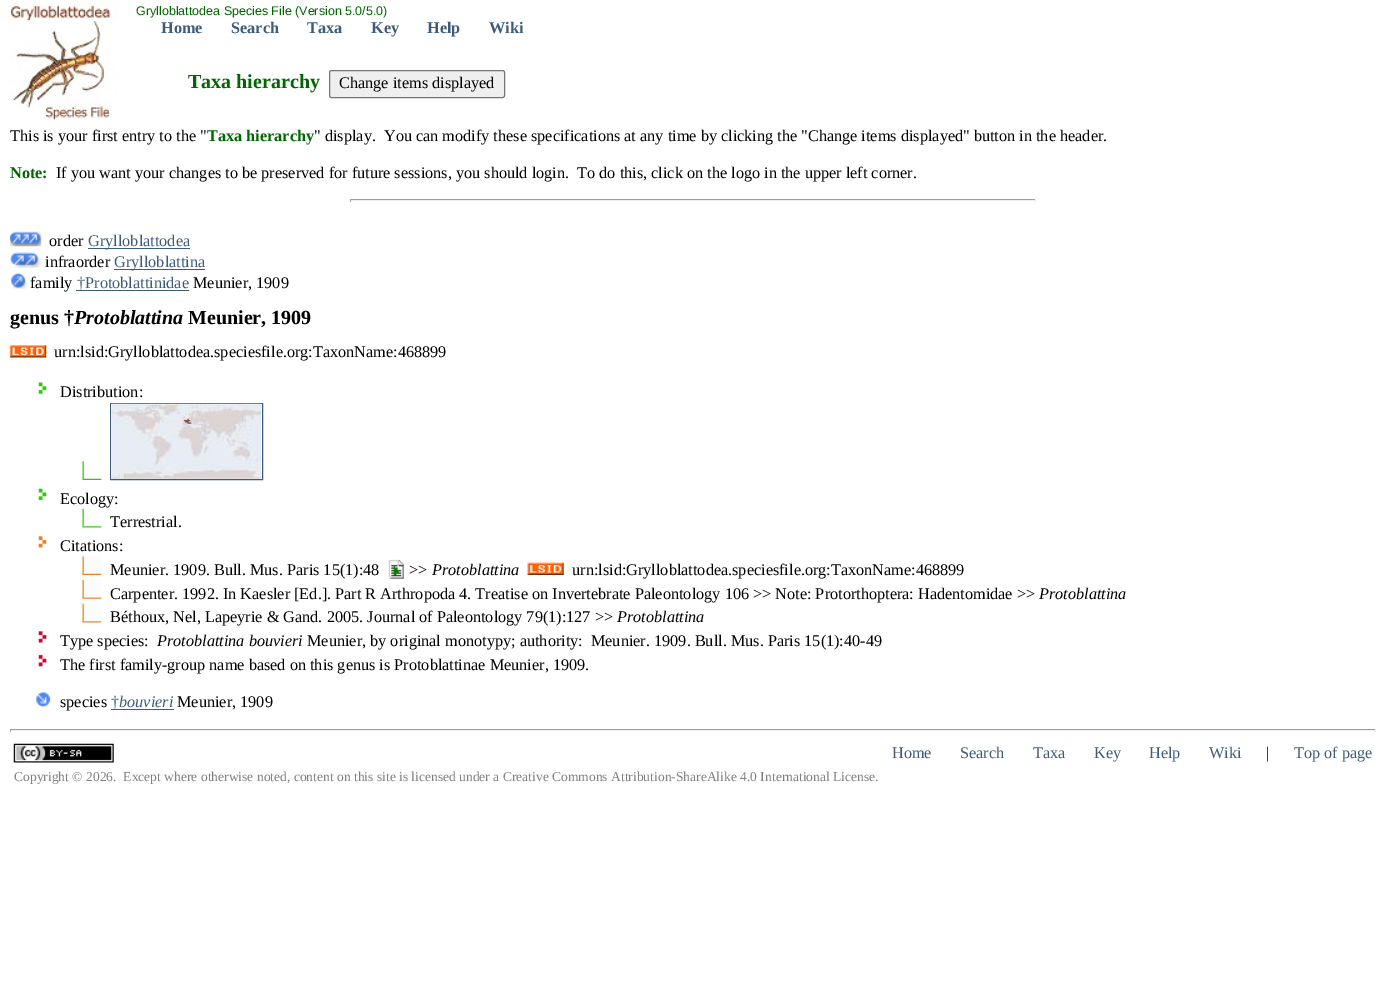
%!PS-Adobe-3.0
%%BoundingBox: 0 0 1386 1006
%%LanguageLevel: 3
%%Pages: 1
%%EndComments
%%BeginProlog
/rrect { 5 dict begin { /r /h /w /y /x } { exch def } forall
  x r add y moveto x w add y 2 copy h add r arct x w add y h add x 1 index r arct
  x y h add x y r arct x y 2 copy exch w add exch r arct closepath end } def
/drawimage { 5 dict begin { /h /w /y /x /name } { exch def } forall
  gsave x y translate w h scale
  w h 8 [w 0 0 h 0 0] name (r) file false 3 colorimage grestore end } def
%%EndProlog
%%BeginSetup
<< /PageSize [1386 1006] >> setpagedevice
%%EndSetup
%%Page: 1 1
0 1006 translate 1 -1 scale
4 setmiterlimit
1 setgray
0 0 1386 1006 rectfill
(images/1.raw) 0 0 118 121 drawimage
0.937 setgray
329.5 70.5 175 27 2 rrect gsave fill grestore
0.463 setgray
stroke
0.624 setgray
350 199 686 1 rectfill
0.933 setgray
1035 199 1 3 rectfill
350 200 686 1 rectfill
0.624 setgray
350 199 1 3 rectfill
(images/2.raw) 10 231 32 16 drawimage
0.239 0.357 0.482 setrgbcolor
88 248 102 1 rectfill
(images/3.raw) 10 252 31 16 drawimage
114 269 91 1 rectfill
(images/4.raw) 11 273 16 16 drawimage
76 290 113 1 rectfill
(images/5.raw) 10 345 37 13 drawimage
(images/6.raw) 38 382 9 12 drawimage
(images/7.raw) 82 461 20 19 drawimage
110.5 403.5 152 76 rectstroke
(images/8.raw) 111 403 151 76 drawimage
(images/9.raw) 38 488 9 13 drawimage
(images/10.raw) 82 508 20 20 drawimage
(images/11.raw) 38 536 9 12 drawimage
(images/12.raw) 82 556 20 19 drawimage
(images/13.raw) 388 559 16 20 drawimage
(images/14.raw) 527 562 37 13 drawimage
(images/15.raw) 82 580 20 19 drawimage
(images/16.raw) 82 603 20 20 drawimage
(images/17.raw) 38 631 9 12 drawimage
(images/18.raw) 38 654 9 13 drawimage
(images/19.raw) 36 692 15 15 drawimage
111 709 63 1 rectfill
0.624 setgray
10 729 1366 1 rectfill
0.933 setgray
1375 729 1 3 rectfill
10 730 1366 1 rectfill
0.624 setgray
10 729 1 3 rectfill
(images/20.raw) 13 743 101 20 drawimage
/LiberationSans-Regular [12.5 0 0 -12.5 0 0] selectfont
0 0.4 0 setrgbcolor
136 15 moveto (Grylloblattodea Species File \(Version 5.0/5.0\)) show
/LiberationSerif-Bold [16.25 0 0 -16.25 0 0] selectfont
0.239 0.357 0.482 setrgbcolor
161 33 moveto (Home) show
231 33 moveto (Search) show
307 33 moveto (Taxa) show
371 33 moveto (Key) show
427 33 moveto (Help) show
489 33 moveto (Wiki) show
/LiberationSerif-Bold [20 0 0 -20 0 0] selectfont
0 0.4 0 setrgbcolor
188 88 moveto (Taxa hierarchy) show
/LiberationSerif-Regular [16.25 0 0 -16.25 0 0] selectfont
0 setgray
339 88 moveto (Change items displayed) show
10 141 moveto (This is your first entry to the ") show
/LiberationSerif-Bold [16.25 0 0 -16.25 0 0] selectfont
0 0.4 0 setrgbcolor
207 141 moveto (Taxa hierarchy) show
/LiberationSerif-Regular [16.25 0 0 -16.25 0 0] selectfont
0 setgray
314 141 moveto (" display.  You can modify these specifications at any time by clicking the "Change items displayed" button in the header.) show
/LiberationSerif-Bold [16.25 0 0 -16.25 0 0] selectfont
0 0.4 0 setrgbcolor
10 178 moveto (Note:) show
/LiberationSerif-Regular [16.25 0 0 -16.25 0 0] selectfont
0 setgray
56 178 moveto (If you want your changes to be preserved for future sessions, you should login.  To do this, click on the logo in the upper left corner.) show
49 246 moveto (order) show
0.239 0.357 0.482 setrgbcolor
88 246 moveto (Grylloblattodea) show
0 setgray
45 267 moveto (infraorder) show
0.239 0.357 0.482 setrgbcolor
114 267 moveto (Grylloblattina) show
0 setgray
30 288 moveto (family) show
0.239 0.357 0.482 setrgbcolor
77 288 moveto (†Protoblattinidae) show
0 setgray
193 288 moveto (Meunier, 1909) show
/LiberationSerif-Bold [20 0 0 -20 0 0] selectfont
10 324 moveto (genus †) show
/LiberationSerif-BoldItalic [20 0 0 -20 0 0] selectfont
74 324 moveto (Protoblattina) show
/LiberationSerif-Bold [20 0 0 -20 0 0] selectfont
188 324 moveto (Meunier, 1909) show
/LiberationSerif-Regular [16.25 0 0 -16.25 0 0] selectfont
54 357 moveto (urn:lsid:Grylloblattodea.speciesfile.org:TaxonName:468899) show
60 397 moveto (Distribution:) show
60 504 moveto (Ecology:) show
110 527 moveto (Terrestrial.) show
60 551 moveto (Citations:) show
110 575 moveto (Meunier. 1909. Bull. Mus. Paris 15\(1\):48) show
409 575 moveto (>>) show
/LiberationSerif-Italic [16.25 0 0 -16.25 0 0] selectfont
432 575 moveto (Protoblattina) show
/LiberationSerif-Regular [16.25 0 0 -16.25 0 0] selectfont
572 575 moveto (urn:lsid:Grylloblattodea.speciesfile.org:TaxonName:468899) show
110 599 moveto (Carpenter. 1992. In Kaesler [Ed.]. Part R Arthropoda 4. Treatise on Invertebrate Paleontology 106 >> Note: Protorthoptera: Hadentomidae >>) show
/LiberationSerif-Italic [16.25 0 0 -16.25 0 0] selectfont
1039 599 moveto (Protoblattina) show
/LiberationSerif-Regular [16.25 0 0 -16.25 0 0] selectfont
110 622 moveto (Béthoux, Nel, Lapeyrie & Gand. 2005. Journal of Paleontology 79\(1\):127 >>) show
/LiberationSerif-Italic [16.25 0 0 -16.25 0 0] selectfont
617 622 moveto (Protoblattina) show
/LiberationSerif-Regular [16.25 0 0 -16.25 0 0] selectfont
60 646 moveto (Type species:) show
/LiberationSerif-Italic [16.25 0 0 -16.25 0 0] selectfont
157 646 moveto (Protoblattina bouvieri) show
/LiberationSerif-Regular [16.25 0 0 -16.25 0 0] selectfont
307 646 moveto (Meunier, by original monotypy; authority:  Meunier. 1909. Bull. Mus. Paris 15\(1\):40-49) show
60 670 moveto (The first family-group name based on this genus is Protoblattinae Meunier, 1909.) show
60 707 moveto (species) show
0.239 0.357 0.482 setrgbcolor
111 707 moveto (†) show
/LiberationSerif-Italic [16.25 0 0 -16.25 0 0] selectfont
119 707 moveto (bouvieri) show
/LiberationSerif-Regular [16.25 0 0 -16.25 0 0] selectfont
0 setgray
177 707 moveto (Meunier, 1909) show
0.239 0.357 0.482 setrgbcolor
892 758 moveto (Home) show
960 758 moveto (Search) show
1033 758 moveto (Taxa) show
1094 758 moveto (Key) show
1149 758 moveto (Help) show
1209 758 moveto (Wiki) show
0 setgray
1266 758 moveto (|) show
0.239 0.357 0.482 setrgbcolor
1294 758 moveto (Top of page) show
/LiberationSerif-Regular [13.55 0 0 -13.55 0 0] selectfont
0.502 setgray
14 781 moveto (Copyright © 2026.  Except where otherwise noted, content on this site is licensed under a Creative Commons Attribution-ShareAlike 4.0 International License.) show
showpage
%%EOF
